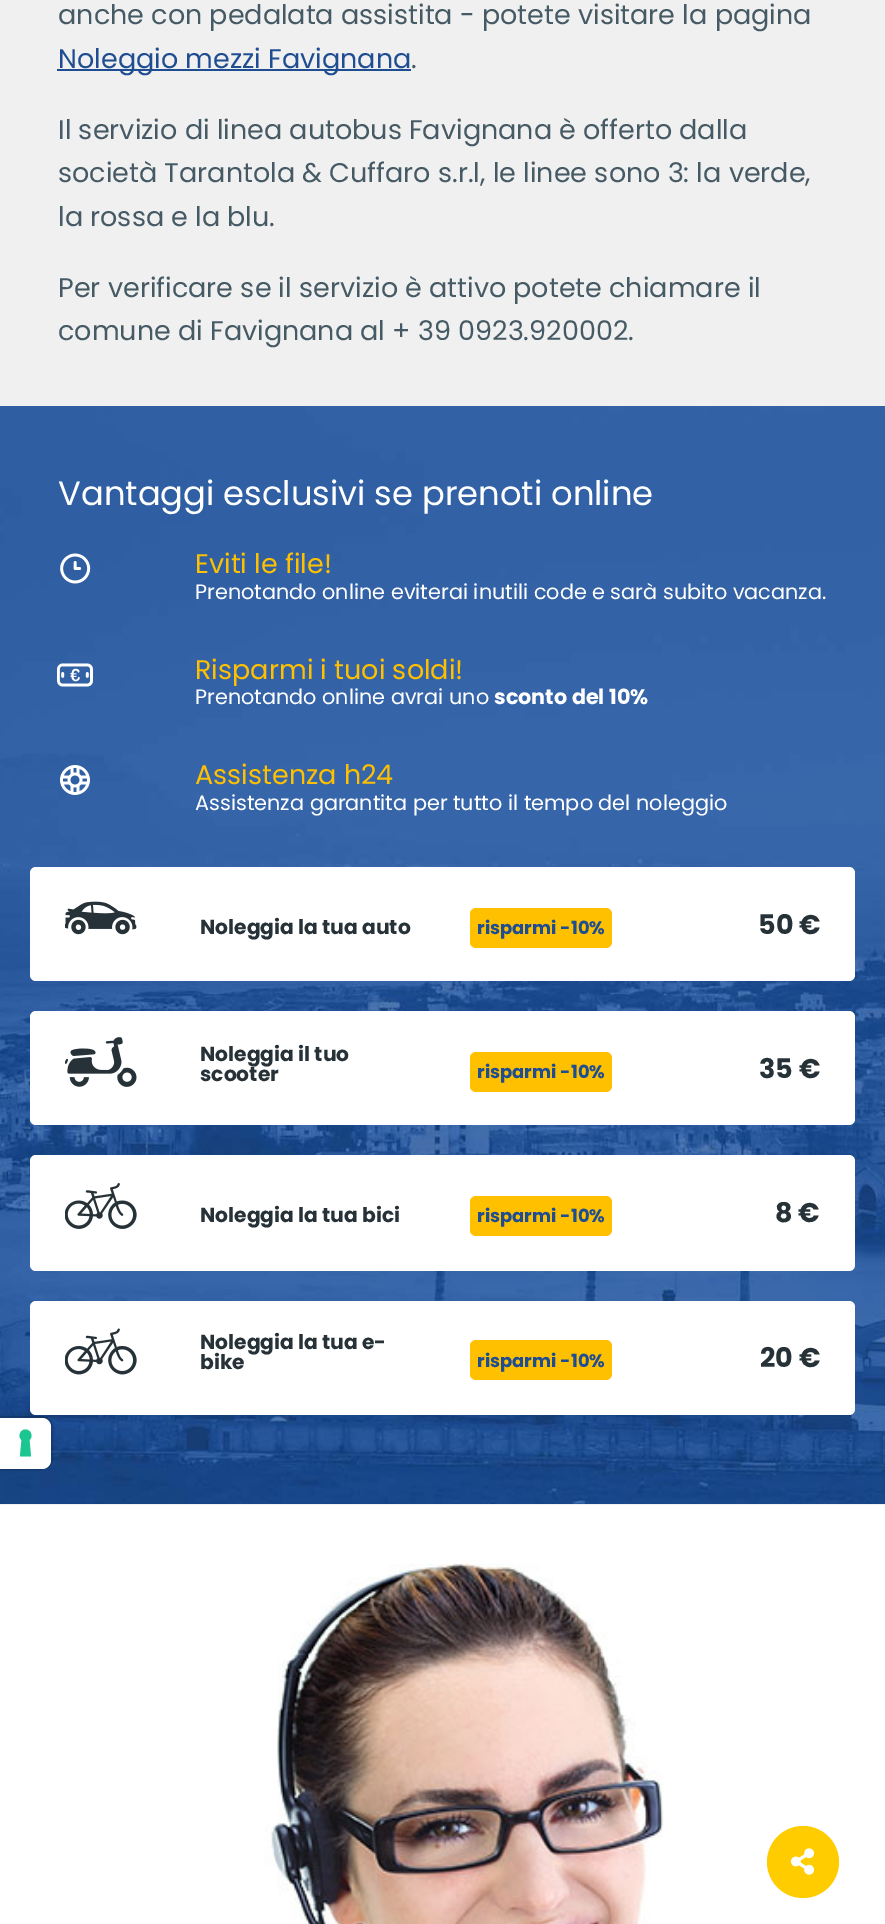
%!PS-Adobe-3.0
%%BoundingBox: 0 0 885 1924
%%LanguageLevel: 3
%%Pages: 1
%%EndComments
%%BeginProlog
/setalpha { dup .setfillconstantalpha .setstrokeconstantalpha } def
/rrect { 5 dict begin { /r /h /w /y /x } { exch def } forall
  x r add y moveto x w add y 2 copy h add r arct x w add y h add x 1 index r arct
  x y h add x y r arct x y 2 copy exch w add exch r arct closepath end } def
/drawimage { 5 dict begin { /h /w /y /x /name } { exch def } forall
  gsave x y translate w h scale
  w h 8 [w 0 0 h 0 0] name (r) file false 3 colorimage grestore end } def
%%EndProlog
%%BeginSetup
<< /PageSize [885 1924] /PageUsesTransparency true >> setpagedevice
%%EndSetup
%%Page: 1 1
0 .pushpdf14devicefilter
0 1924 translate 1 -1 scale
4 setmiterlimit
0.941 setgray
0 0 885 1924 rectfill
0.118 0.302 0.569 setrgbcolor
57 69 354 2 rectfill
1 setgray
0 1505 885 419 rectfill
1 0.8 0 setrgbcolor
newpath 803 1862 36 0 360 arc closepath fill
(images/1.raw) 790 1848 25 27 drawimage
(images/2.raw) 0 406 885 1098 drawimage
(images/3.raw) 60 553 31 31 drawimage
(images/4.raw) 57 663 36 24 drawimage
(images/5.raw) 60 765 30 30 drawimage
1 setgray
30 867 825 114 6 rrect fill
(images/6.raw) 65 901 72 34 drawimage
1 0.753 0 setrgbcolor
470 908 142 40 6 rrect fill
1 setgray
30 1011 825 114 6 rrect fill
(images/7.raw) 65 1037 72 50 drawimage
1 0.753 0 setrgbcolor
470 1052 142 40 6 rrect fill
1 setgray
30 1155 825 116 6 rrect fill
(images/8.raw) 65 1183 72 46 drawimage
1 0.753 0 setrgbcolor
470 1196 142 40 6 rrect fill
1 setgray
30 1301 825 114 6 rrect fill
(images/9.raw) 65 1328 72 47 drawimage
1 0.753 0 setrgbcolor
470 1340 142 40 6 rrect fill
0.15 setalpha
0 setgray
2 setlinewidth
newpath 0 1417 moveto 42 1417 lineto 47.5 1417 52 1421.5 52 1427 curveto 52 1459 lineto 52 1464.5 47.5 1469 42 1469 curveto 0 1469 lineto closepath stroke
1 setalpha
1 setgray
newpath 0 1418 moveto 42 1418 lineto 47 1418 51 1422 51 1427 curveto 51 1460 lineto 51 1465 47 1469 42 1469 curveto 0 1469 lineto closepath fill
0.11 0.776 0.569 setrgbcolor
newpath 25.5 1429.5 moveto 31 1429.5 33.5 1436.5 29.5 1440 curveto 31 1456.5 lineto 20 1456.5 lineto 21.5 1440 lineto 17.5 1436.5 20 1429.5 25.5 1429.5 curveto closepath eofill
(images/10.raw) 264 1564 400 360 drawimage
/Poppins-Regular [27 0 0 -27 0 0] selectfont
0.271 0.353 0.392 setrgbcolor
58 24 moveto (anche con pedalata assistita - potete visitare la pagina) show
0.118 0.302 0.569 setrgbcolor
58 68 moveto (Noleggio mezzi Favignana) show
0.271 0.353 0.392 setrgbcolor
411 68 moveto (.) show
58 139 moveto (Il servizio di linea autobus Favignana è offerto dalla) show
58 182 moveto (società Tarantola & Cuffaro s.r.l, le linee sono 3: la verde,) show
58 226 moveto (la rossa e la blu.) show
58 297 moveto (Per verificare se il servizio è attivo potete chiamare il) show
58 340 moveto (comune di Favignana al + 39 0923.920002.) show
/Poppins-Regular [33.75 0 0 -33.75 0 0] selectfont
1 setgray
58 505 moveto (Vantaggi esclusivi se prenoti online) show
/Poppins-Regular [27 0 0 -27 0 0] selectfont
1 0.753 0 setrgbcolor
195 573 moveto (Eviti le file!) show
/Poppins-Regular [20.8 0 0 -20.8 0 0] selectfont
1 setgray
195 599 moveto (Prenotando online eviterai inutili code e sarà subito vacanza.) show
/Poppins-Regular [27 0 0 -27 0 0] selectfont
1 0.753 0 setrgbcolor
195 679 moveto (Risparmi i tuoi soldi!) show
/Poppins-Regular [20.8 0 0 -20.8 0 0] selectfont
1 setgray
195 704 moveto (Prenotando online avrai uno) show
/Poppins-Bold [20.8 0 0 -20.8 0 0] selectfont
494 704 moveto (sconto del 10%) show
/Poppins-Regular [27 0 0 -27 0 0] selectfont
1 0.753 0 setrgbcolor
195 784 moveto (Assistenza h24) show
/Poppins-Regular [20.8 0 0 -20.8 0 0] selectfont
1 setgray
195 810 moveto (Assistenza garantita per tutto il tempo del noleggio) show
/Poppins-Bold [20.25 0 0 -20.25 0 0] selectfont
0.149 0.196 0.22 setrgbcolor
200 934 moveto (Noleggia la tua auto) show
/Poppins-Bold [18 0 0 -18 0 0] selectfont
0.118 0.302 0.569 setrgbcolor
477 934 moveto (risparmi -10%) show
/Poppins-Bold [27 0 0 -27 0 0] selectfont
0.149 0.196 0.22 setrgbcolor
758 934 moveto (50 €) show
/Poppins-Bold [20.25 0 0 -20.25 0 0] selectfont
200 1061 moveto (Noleggia il tuo) show
200 1081 moveto (scooter) show
/Poppins-Bold [18 0 0 -18 0 0] selectfont
0.118 0.302 0.569 setrgbcolor
477 1078 moveto (risparmi -10%) show
/Poppins-Bold [27 0 0 -27 0 0] selectfont
0.149 0.196 0.22 setrgbcolor
759 1078 moveto (35 €) show
/Poppins-Bold [20.25 0 0 -20.25 0 0] selectfont
200 1222 moveto (Noleggia la tua bici) show
/Poppins-Bold [18 0 0 -18 0 0] selectfont
0.118 0.302 0.569 setrgbcolor
477 1222 moveto (risparmi -10%) show
/Poppins-Bold [27 0 0 -27 0 0] selectfont
0.149 0.196 0.22 setrgbcolor
775 1222 moveto (8 €) show
/Poppins-Bold [20.25 0 0 -20.25 0 0] selectfont
200 1349 moveto (Noleggia la tua e-) show
200 1369 moveto (bike) show
/Poppins-Bold [18 0 0 -18 0 0] selectfont
0.118 0.302 0.569 setrgbcolor
477 1367 moveto (risparmi -10%) show
/Poppins-Bold [27 0 0 -27 0 0] selectfont
0.149 0.196 0.22 setrgbcolor
760 1367 moveto (20 €) show
.poppdf14devicefilter showpage
%%EOF
